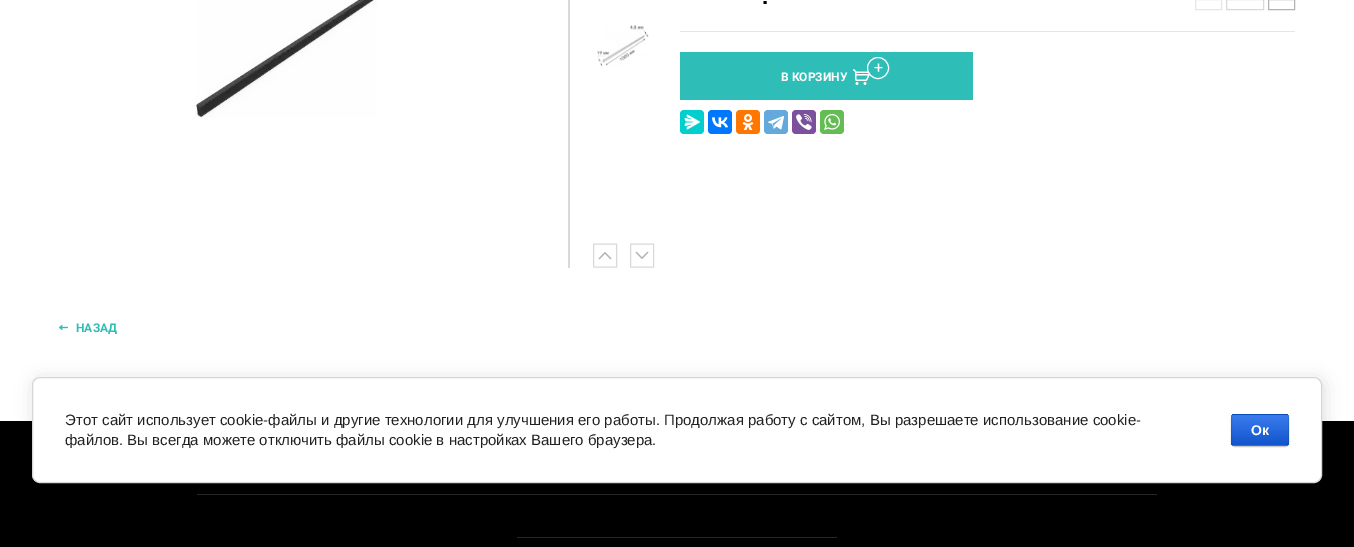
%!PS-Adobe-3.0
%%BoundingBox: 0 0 1354 547
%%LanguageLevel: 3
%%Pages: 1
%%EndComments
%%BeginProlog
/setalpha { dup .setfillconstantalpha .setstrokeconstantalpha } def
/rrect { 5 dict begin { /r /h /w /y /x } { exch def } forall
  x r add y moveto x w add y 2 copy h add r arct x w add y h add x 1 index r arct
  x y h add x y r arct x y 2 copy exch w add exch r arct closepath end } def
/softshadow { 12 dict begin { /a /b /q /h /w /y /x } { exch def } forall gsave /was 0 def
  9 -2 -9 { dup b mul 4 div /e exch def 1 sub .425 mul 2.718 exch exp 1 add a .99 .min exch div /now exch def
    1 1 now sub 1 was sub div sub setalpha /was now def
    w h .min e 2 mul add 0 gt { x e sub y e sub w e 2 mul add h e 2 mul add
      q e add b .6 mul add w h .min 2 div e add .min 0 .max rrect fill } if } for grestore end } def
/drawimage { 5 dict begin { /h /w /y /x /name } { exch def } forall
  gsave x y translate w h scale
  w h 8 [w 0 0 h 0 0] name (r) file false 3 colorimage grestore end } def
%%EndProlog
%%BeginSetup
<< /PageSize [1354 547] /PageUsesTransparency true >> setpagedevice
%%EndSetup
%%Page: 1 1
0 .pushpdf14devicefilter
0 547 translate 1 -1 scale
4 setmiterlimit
1 setgray
0 0 1354 547 rectfill
(images/1.raw) 195 0 182 118 drawimage
0.851 setgray
568 0 2 268 rectfill
(images/2.raw) 597 25 52 42 drawimage
(images/3.raw) 598 252 14 8 drawimage
newpath 593.5 267 moveto 593.5 244 lineto 616.5 244 lineto 616.5 267 lineto closepath stroke
(images/4.raw) 635 251 14 8 drawimage
newpath 653.5 244 moveto 653.5 267 lineto 630.5 267 lineto 630.5 244 lineto closepath stroke
0.902 setgray
680 31 615 1 rectfill
1195.5 -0.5 26 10 rectstroke
0.851 setgray
1226.5 -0.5 37 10 rectstroke
0.702 setgray
1268.5 -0.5 26 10 rectstroke
0.184 0.741 0.722 setrgbcolor
680 52 293 48 rectfill
(images/5.raw) 853 69 17 16 drawimage
newpath 878 68 10.5 0 360 arc closepath gsave fill grestore
1 setgray
stroke
0.012 0.808 0.808 setrgbcolor
680 110 24 24 4 rrect fill
(images/6.raw) 684 114 16 16 drawimage
0 0.467 1 setrgbcolor
708 110 24 24 4 rrect fill
(images/7.raw) 712 117 16 11 drawimage
1 0.467 0 setrgbcolor
736 110 24 24 4 rrect fill
(images/8.raw) 742 114 12 16 drawimage
0.392 0.663 0.863 setrgbcolor
764 110 24 24 4 rrect fill
(images/9.raw) 768 116 16 14 drawimage
0.482 0.318 0.616 setrgbcolor
792 110 24 24 4 rrect fill
(images/10.raw) 796 114 16 16 drawimage
0.396 0.737 0.329 setrgbcolor
820 110 24 24 4 rrect fill
(images/11.raw) 824 114 16 16 drawimage
(images/12.raw) 59 325 9 5 drawimage
0 setgray
0 421 1354 126 rectfill
0.149 setgray
197 494 960 1 rectfill
517 537 320 1 rectfill
0 setgray
34 379 1290 106 8 9 0.14 softshadow
1 setgray
32.5 377.5 1289 105 7.5 rrect gsave fill grestore
0.839 setgray
stroke
0 setgray
1231 415 58 32 4 0.5 0.2 softshadow
gsave
1231 414 58 32 4 rrect clip newpath
gsave newpath 1231 414 moveto 1289 414 lineto 1289 415 lineto 1231 415 lineto closepath clip newpath
<< /ShadingType 2 /ColorSpace /DeviceRGB /Coords [1260 385 1260 415] /Extend [true true] /Function << /FunctionType 2 /Domain [0 1] /C0 [0.231 0.486 0.937] /C1 [0.067 0.333 0.8] /N 1 >> >> shfill grestore
gsave newpath 1231 415 moveto 1289 415 lineto 1289 445 lineto 1231 445 lineto closepath clip newpath
<< /ShadingType 2 /ColorSpace /DeviceRGB /Coords [1260 415 1260 445] /Extend [true true] /Function << /FunctionType 2 /Domain [0 1] /C0 [0.231 0.486 0.937] /C1 [0.067 0.333 0.8] /N 1 >> >> shfill grestore
gsave newpath 1231 445 moveto 1289 445 lineto 1289 446 lineto 1231 446 lineto closepath clip newpath
<< /ShadingType 2 /ColorSpace /DeviceRGB /Coords [1260 445 1260 475] /Extend [true true] /Function << /FunctionType 2 /Domain [0 1] /C0 [0.231 0.486 0.937] /C1 [0.067 0.333 0.8] /N 1 >> >> shfill grestore
grestore
0.1 setalpha
1231.5 414.5 57 31 3.5 rrect stroke
/RobotoSlab-Bold [23 0 0 -23 0 0] selectfont
1 setalpha
762 4 moveto (.) show
/Roboto-Regular [16 0 0 -16 0 0] selectfont
1 setgray
874 73 moveto (+) show
/Roboto-Bold [12 0 0 -12 0 0] selectfont
781 81 moveto (В КОРЗИНУ) show
0.184 0.741 0.722 setrgbcolor
76 332 moveto (НАЗАД) show
/LiberationSans-Regular [15 0 0 -15 0 0] selectfont
0.129 setgray
65 425 moveto (Этот сайт использует cookie-файлы и другие технологии для улучшения его работы. Продолжая работу с сайтом, Вы разрешаете использование cookie-) show
65 445 moveto (файлов. Вы всегда можете отключить файлы cookie в настройках Вашего браузера.) show
/LiberationSans-Bold [14 0 0 -14 0 0] selectfont
1 setgray
1251 435 moveto (Ок) show
.poppdf14devicefilter showpage
%%EOF
